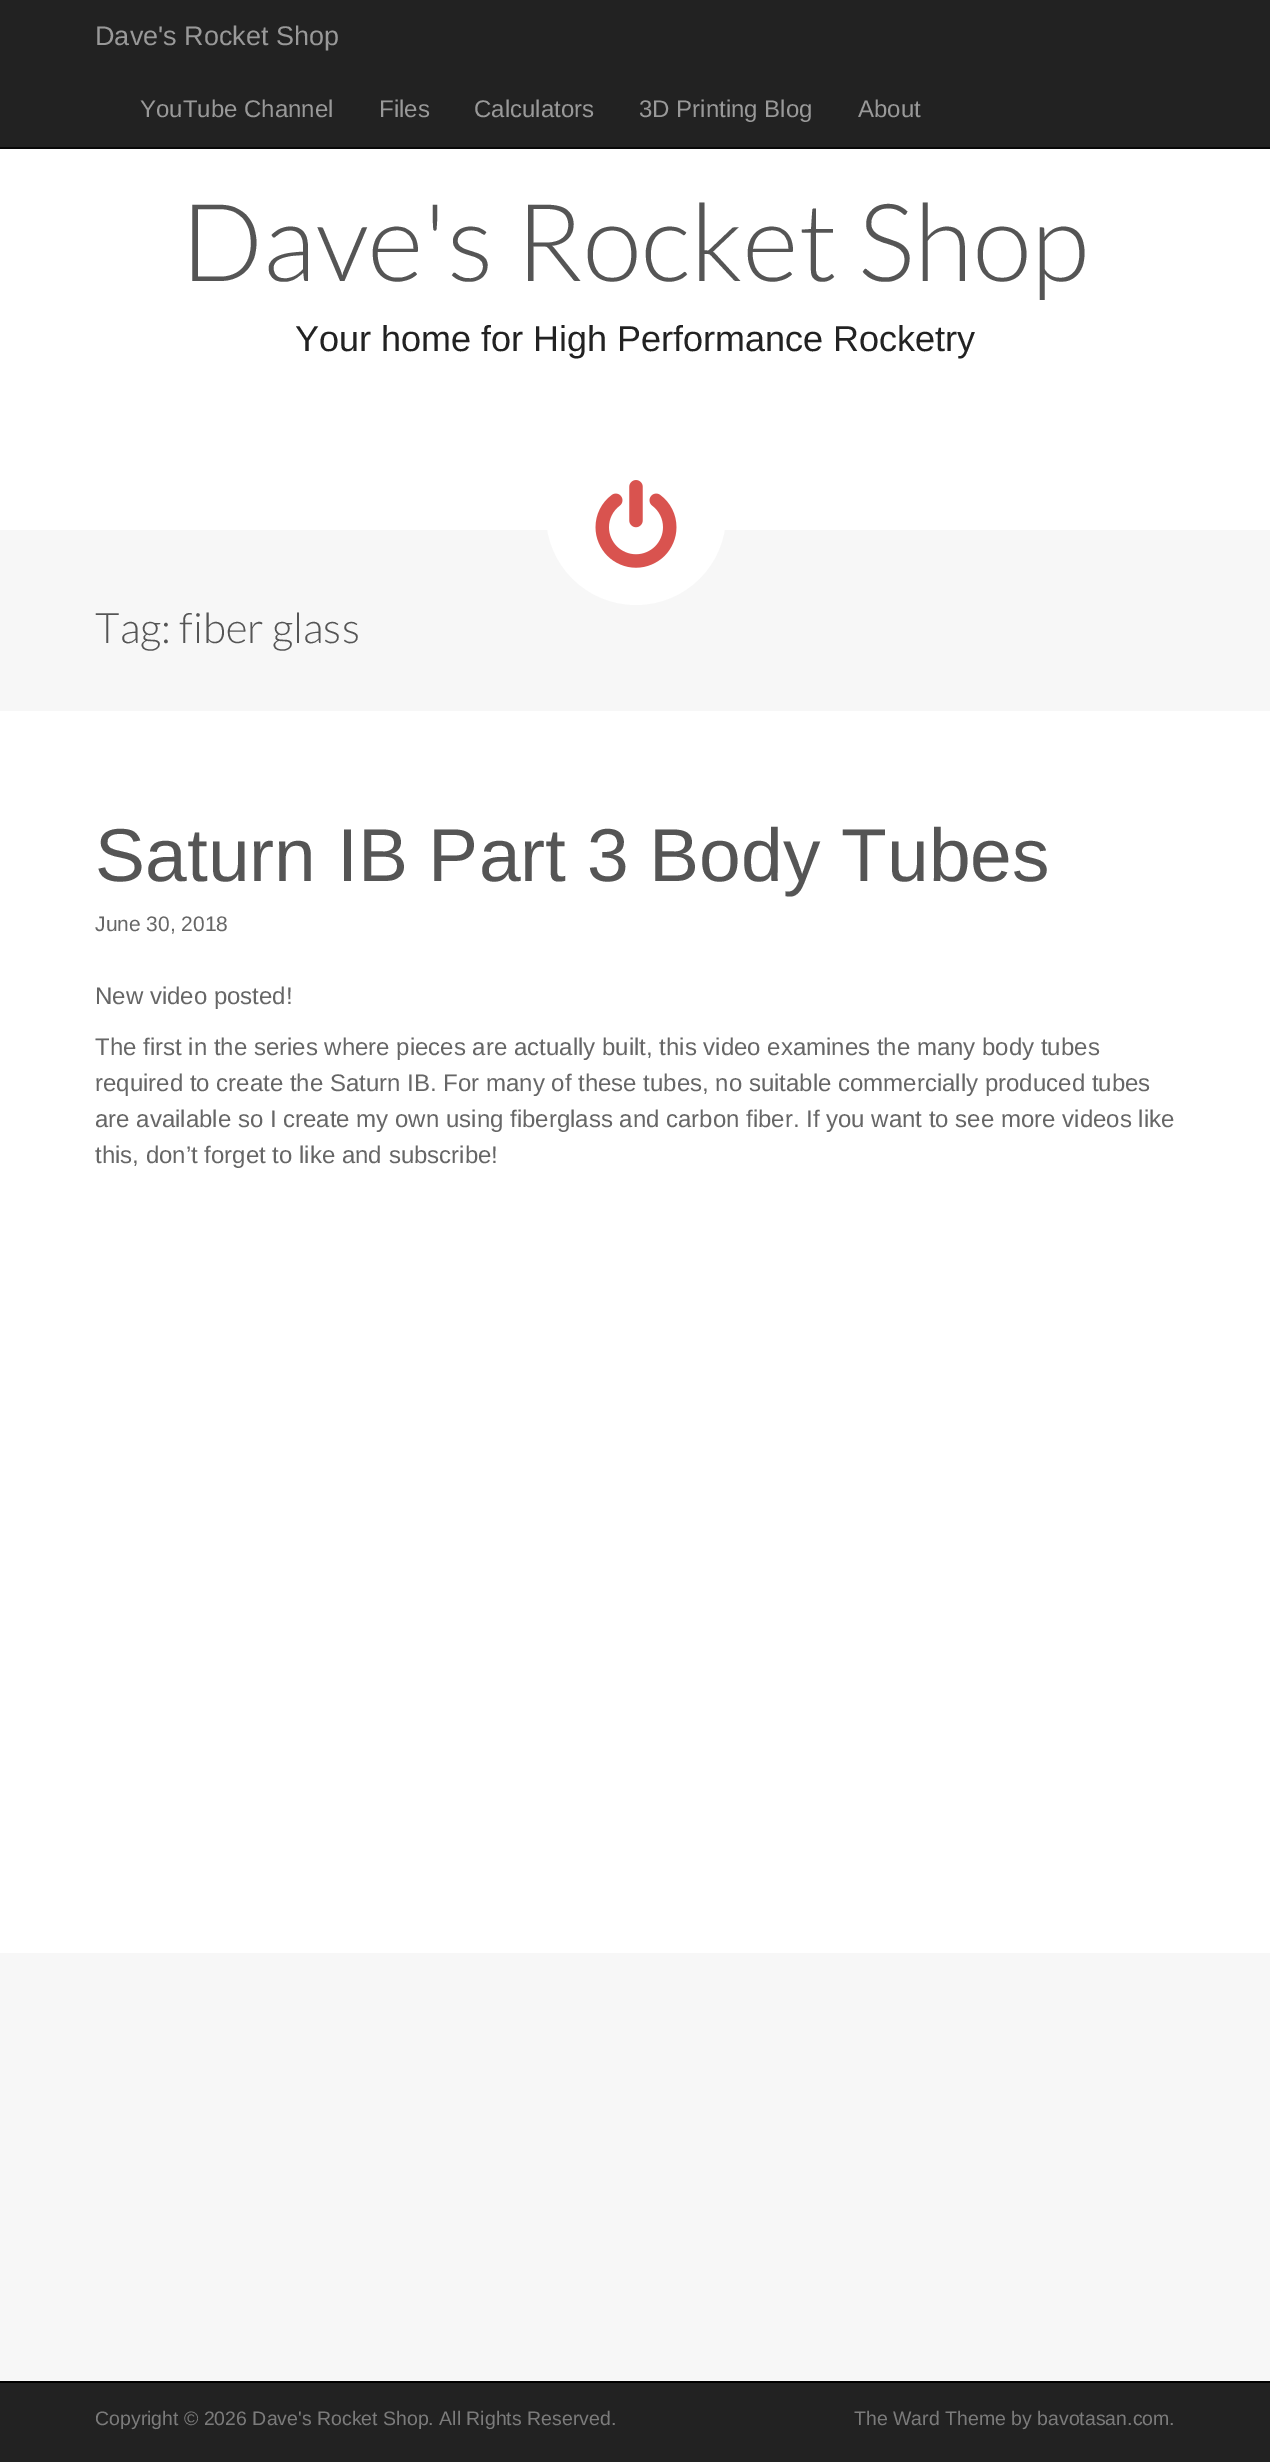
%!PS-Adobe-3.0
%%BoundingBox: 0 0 1270 2462
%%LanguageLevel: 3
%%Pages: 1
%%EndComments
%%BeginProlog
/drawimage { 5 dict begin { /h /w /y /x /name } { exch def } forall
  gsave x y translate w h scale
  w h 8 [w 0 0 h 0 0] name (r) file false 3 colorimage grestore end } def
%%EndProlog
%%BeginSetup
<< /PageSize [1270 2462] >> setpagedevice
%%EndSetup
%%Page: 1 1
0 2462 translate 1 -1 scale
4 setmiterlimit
0.969 setgray
0 0 1270 2462 rectfill
0.133 setgray
0 0 1270 147 rectfill
0.031 setgray
0 147 1270 2 rectfill
1 setgray
0 149 1270 381 rectfill
newpath 636 515 90 0 360 arc closepath fill
(images/1.raw) 595 480 82 88 drawimage
0 711 1270 1242 rectfill
0.133 setgray
0 2383 1270 79 rectfill
0 setgray
0 2381 1270 2 rectfill
/LiberationSans-Regular [27 0 0 -27 0 0] selectfont
0.6 setgray
95 45 moveto (Dave's Rocket Shop) show
/LiberationSans-Regular [24 0 0 -24 0 0] selectfont
140 117 moveto (YouTube Channel) show
379 117 moveto (Files) show
474 117 moveto (Calculators) show
639 117 moveto (3D Printing Blog) show
858 117 moveto (About) show
/Lato-Light [108 0 0 -108 0 0] selectfont
0.333 setgray
181 281 moveto (Dave's Rocket Shop) show
/LiberationSans-Regular [36 0 0 -36 0 0] selectfont
0.133 setgray
295 351 moveto (Your home for High Performance Rocketry) show
/Lato-Light [42 0 0 -42 0 0] selectfont
0.333 setgray
95 643 moveto (Tag: fiber glass) show
/LiberationSans-Regular [75 0 0 -75 0 0] selectfont
95 881 moveto (Saturn IB Part 3 Body Tubes) show
/LiberationSans-Regular [21 0 0 -21 0 0] selectfont
0.4 setgray
95 931 moveto (June 30, 2018) show
/LiberationSans-Regular [24 0 0 -24 0 0] selectfont
95 1004 moveto (New video posted!) show
95 1055 moveto (The first in the series where pieces are actually built, this video examines the many body tubes) show
95 1091 moveto (required to create the Saturn IB. For many of these tubes, no suitable commercially produced tubes) show
95 1127 moveto (are available so I create my own using fiberglass and carbon fiber. If you want to see more videos like) show
95 1163 moveto (this, don’t forget to like and subscribe!) show
/LiberationSans-Regular [19.5 0 0 -19.5 0 0] selectfont
0.482 setgray
95 2425 moveto (Copyright © 2026 Dave's Rocket Shop. All Rights Reserved.) show
854 2425 moveto (The Ward Theme by bavotasan.com.) show
showpage
%%EOF
